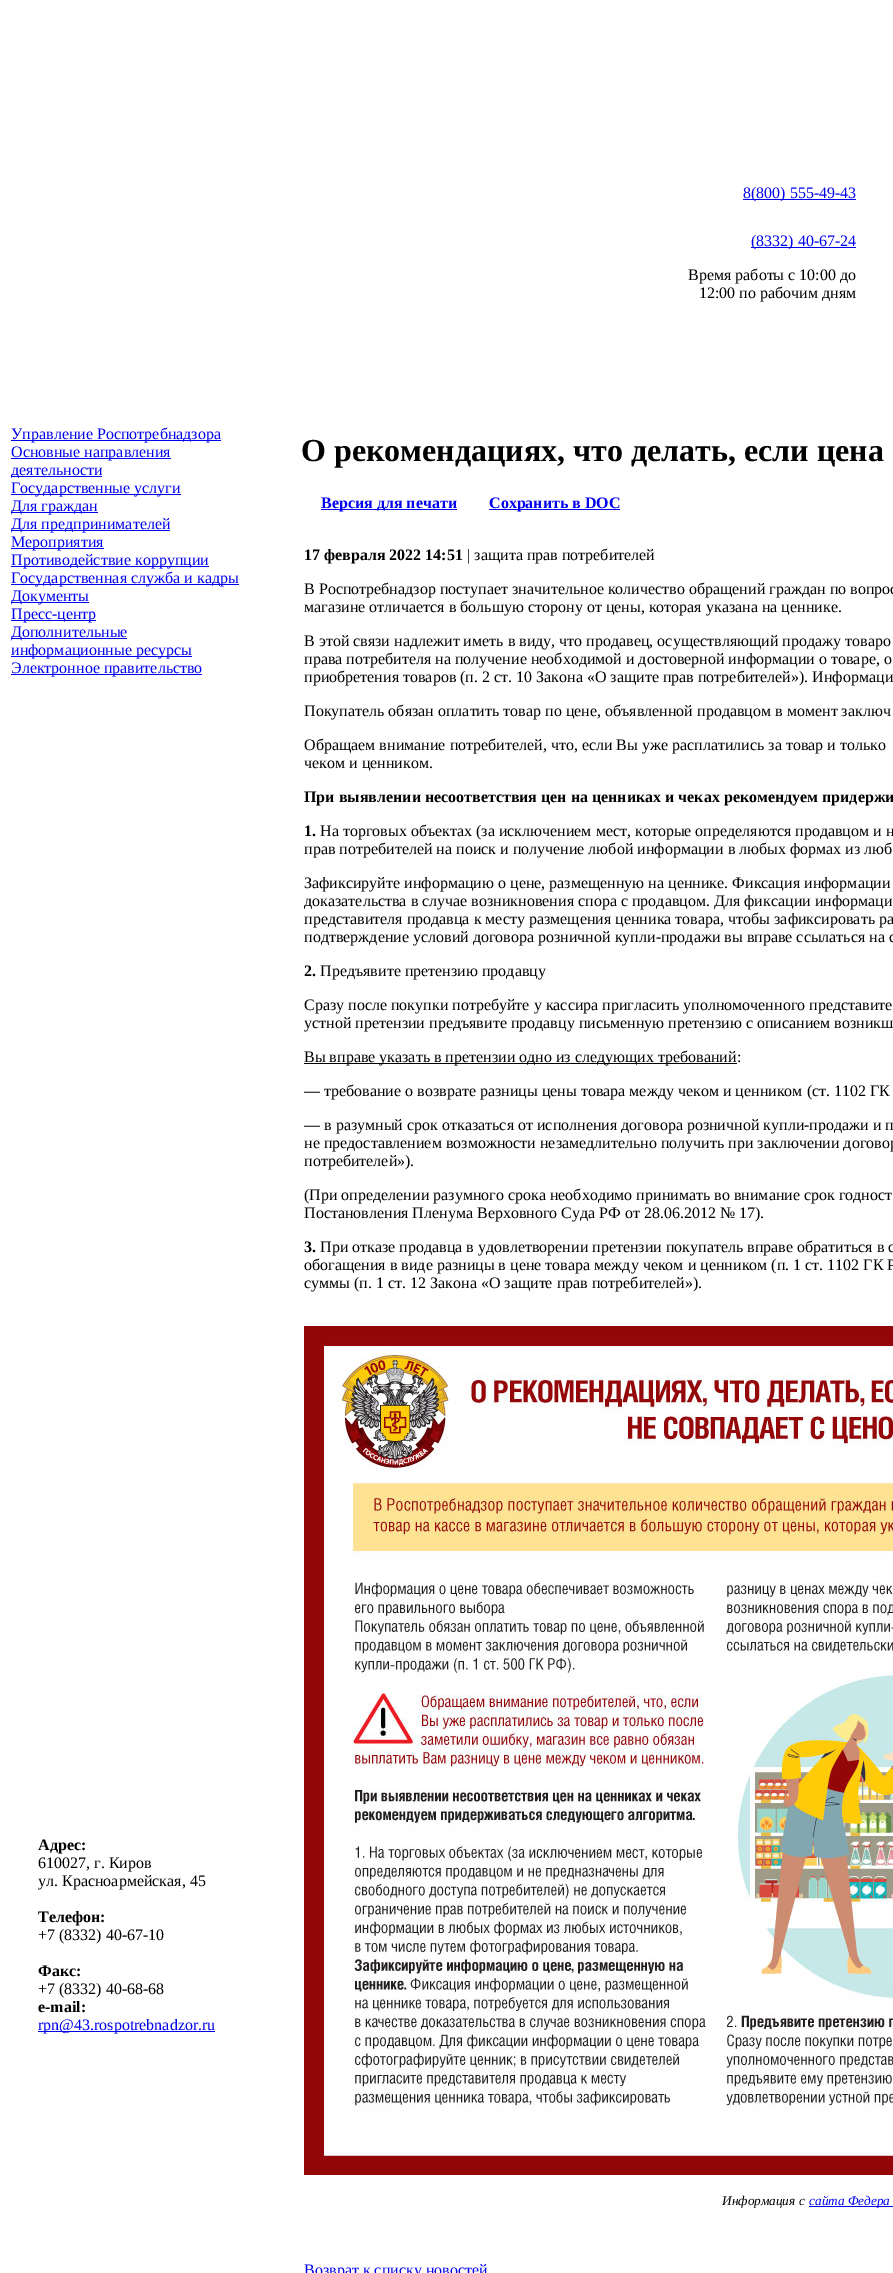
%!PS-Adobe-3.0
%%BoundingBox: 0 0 893 2273
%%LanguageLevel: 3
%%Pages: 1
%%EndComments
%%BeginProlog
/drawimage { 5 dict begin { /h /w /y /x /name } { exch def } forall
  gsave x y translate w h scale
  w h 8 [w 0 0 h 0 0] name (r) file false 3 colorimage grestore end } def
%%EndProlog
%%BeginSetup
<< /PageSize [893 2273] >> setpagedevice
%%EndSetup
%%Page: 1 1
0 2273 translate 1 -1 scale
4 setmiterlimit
1 setgray
0 0 893 2273 rectfill
0 0 0.933 setrgbcolor
743 199 113 1 rectfill
751 247 105 1 rectfill
11 440 210 1 rectfill
11 458 160 1 rectfill
11 476 91 1 rectfill
11 494 170 1 rectfill
11 512 87 1 rectfill
11 530 159 1 rectfill
11 548 93 1 rectfill
11 566 198 1 rectfill
11 584 228 1 rectfill
11 602 78 1 rectfill
11 620 85 1 rectfill
11 638 116 1 rectfill
11 656 181 1 rectfill
11 674 191 1 rectfill
38 2031 177 1 rectfill
321 509 136 1 rectfill
489 509 131 1 rectfill
0 setgray
304 1063 433 1 rectfill
(images/1.raw) 304 1326 589 849 drawimage
0 0 0.933 setrgbcolor
809 2206 84 1 rectfill
/LiberationSerif-Regular [16 0 0 -16 0 0] selectfont
743 198 moveto (8\(800\) 555-49-43) show
751 246 moveto (\(8332\) 40-67-24) show
0 setgray
688 280 moveto (Время работы с 10:00 до) show
699 298 moveto (12:00 по рабочим дням) show
0 0 0.933 setrgbcolor
11 439 moveto (Управление Роспотребнадзора) show
11 457 moveto (Основные направления) show
11 475 moveto (деятельности) show
11 493 moveto (Государственные услуги) show
11 511 moveto (Для граждан) show
11 529 moveto (Для предпринимателей) show
11 547 moveto (Мероприятия) show
11 565 moveto (Противодействие коррупции) show
11 583 moveto (Государственная служба и кадры) show
11 601 moveto (Документы) show
11 619 moveto (Пресс-центр) show
11 637 moveto (Дополнительные) show
11 655 moveto (информационные ресурсы) show
11 673 moveto (Электронное правительство) show
/LiberationSerif-Bold [16 0 0 -16 0 0] selectfont
0 setgray
38 1850 moveto (Адрес:) show
/LiberationSerif-Regular [16 0 0 -16 0 0] selectfont
38 1868 moveto (610027, г. Киров) show
38 1886 moveto (ул. Красноармейская, 45) show
/LiberationSerif-Bold [16 0 0 -16 0 0] selectfont
38 1922 moveto (Телефон:) show
/LiberationSerif-Regular [16 0 0 -16 0 0] selectfont
38 1940 moveto (+7 \(8332\) 40-67-10) show
/LiberationSerif-Bold [16 0 0 -16 0 0] selectfont
38 1976 moveto (Факс:) show
/LiberationSerif-Regular [16 0 0 -16 0 0] selectfont
38 1994 moveto (+7 \(8332\) 40-68-68) show
/LiberationSerif-Bold [16 0 0 -16 0 0] selectfont
38 2012 moveto (e-mail:) show
/LiberationSerif-Regular [16 0 0 -16 0 0] selectfont
0 0 0.933 setrgbcolor
38 2030 moveto (rpn@43.rospotrebnadzor.ru) show
/LiberationSerif-Bold [32 0 0 -32 0 0] selectfont
0 setgray
301 461 moveto (О рекомендациях, что делать, если цена) show
/LiberationSerif-Bold [16 0 0 -16 0 0] selectfont
0 0 0.933 setrgbcolor
321 508 moveto (Версия для печати) show
489 508 moveto (Сохранить в DOC) show
0 setgray
304 560 moveto (17 февраля 2022 14:51) show
/LiberationSerif-Regular [16 0 0 -16 0 0] selectfont
467 560 moveto (| защита прав потребителей) show
304 594 moveto (В Роспотребнадзор поступает значительное количество обращений граждан по вопрос) show
304 612 moveto (магазине отличается в большую сторону от цены, которая указана на ценнике.) show
304 646 moveto (В этой связи надлежит иметь в виду, что продавец, осуществляющий продажу товаро) show
304 664 moveto (права потребителя на получение необходимой и достоверной информации о товаре, о) show
304 682 moveto (приобретения товаров \(п. 2 ст. 10 Закона «О защите прав потребителей»\). Информаци) show
304 716 moveto (Покупатель обязан оплатить товар по цене, объявленной продавцом в момент заключ) show
304 750 moveto (Обращаем внимание потребителей, что, если Вы уже расплатились за товар и только) show
304 768 moveto (чеком и ценником.) show
/LiberationSerif-Bold [16 0 0 -16 0 0] selectfont
304 802 moveto (При выявлении несоответствия цен на ценниках и чеках рекомендуем придержи) show
304 836 moveto (1.) show
/LiberationSerif-Regular [16 0 0 -16 0 0] selectfont
320 836 moveto (На торговых объектах \(за исключением мест, которые определяются продавцом и н) show
304 854 moveto (прав потребителей на поиск и получение любой информации в любых формах из люб) show
304 888 moveto (Зафиксируйте информацию о цене, размещенную на ценнике. Фиксация информации) show
304 906 moveto (доказательства в случае возникновения спора с продавцом. Для фиксации информаци) show
304 924 moveto (представителя продавца к месту размещения ценника товара, чтобы зафиксировать ра) show
304 942 moveto (подтверждение условий договора розничной купли-продажи вы вправе ссылаться на с) show
/LiberationSerif-Bold [16 0 0 -16 0 0] selectfont
304 976 moveto (2.) show
/LiberationSerif-Regular [16 0 0 -16 0 0] selectfont
320 976 moveto (Предъявите претензию продавцу) show
304 1010 moveto (Сразу после покупки потребуйте у кассира пригласить уполномоченного представите) show
304 1028 moveto (устной претензии предъявите продавцу письменную претензию с описанием возникш) show
304 1062 moveto (Вы вправе указать в претензии одно из следующих требований:) show
304 1096 moveto (— требование о возврате разницы цены товара между чеком и ценником \(ст. 1102 ГК) show
304 1130 moveto (— в разумный срок отказаться от исполнения договора розничной купли-продажи и п) show
304 1148 moveto (не предоставлением возможности незамедлительно получить при заключении договор) show
304 1166 moveto (потребителей»\).) show
304 1200 moveto (\(При определении разумного срока необходимо принимать во внимание срок годност) show
304 1218 moveto (Постановления Пленума Верховного Суда РФ от 28.06.2012 № 17\).) show
/LiberationSerif-Bold [16 0 0 -16 0 0] selectfont
304 1252 moveto (3.) show
/LiberationSerif-Regular [16 0 0 -16 0 0] selectfont
320 1252 moveto (При отказе продавца в удовлетворении претензии покупатель вправе обратиться в с) show
304 1270 moveto (обогащения в виде разницы в цене товара между чеком и ценником \(п. 1 ст. 1102 ГК Р) show
304 1288 moveto (суммы \(п. 1 ст. 12 Закона «О защите прав потребителей»\).) show
/LiberationSerif-Italic [13.25 0 0 -13.25 0 0] selectfont
722 2205 moveto (Информация с) show
0 0 0.933 setrgbcolor
809 2205 moveto (сайта Федера) show
/LiberationSerif-Regular [16 0 0 -16 0 0] selectfont
304 2275 moveto (Возврат к списку новостей) show
showpage
%%EOF
